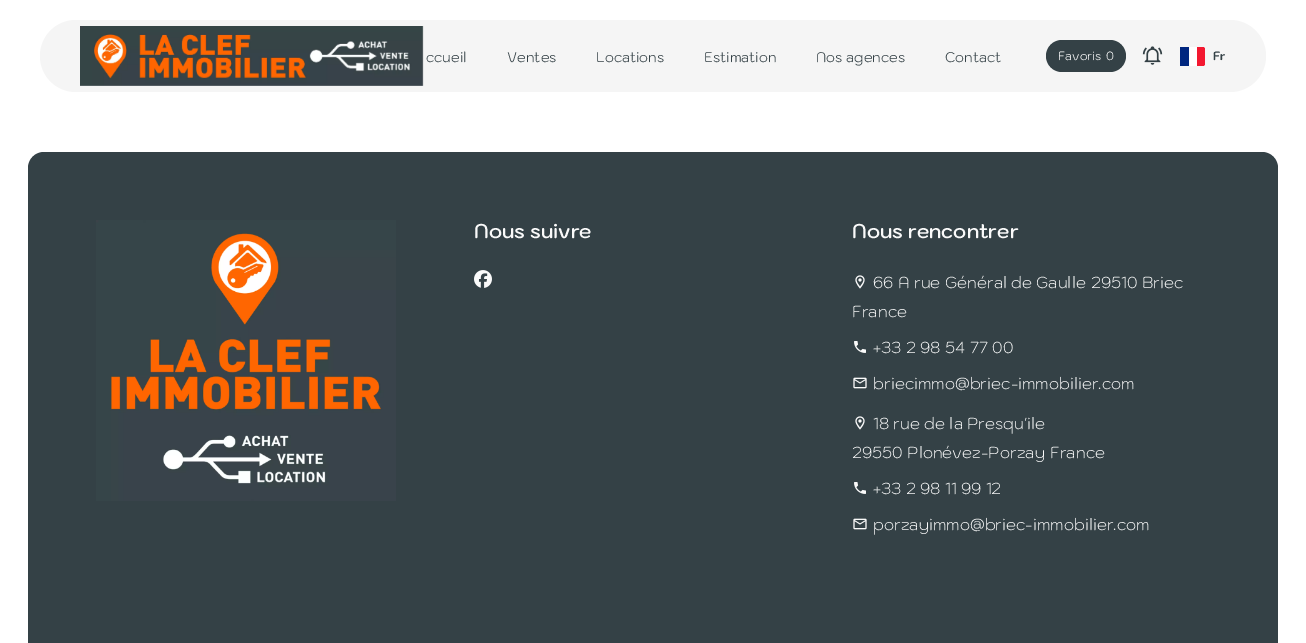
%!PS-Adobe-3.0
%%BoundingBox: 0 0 1306 643
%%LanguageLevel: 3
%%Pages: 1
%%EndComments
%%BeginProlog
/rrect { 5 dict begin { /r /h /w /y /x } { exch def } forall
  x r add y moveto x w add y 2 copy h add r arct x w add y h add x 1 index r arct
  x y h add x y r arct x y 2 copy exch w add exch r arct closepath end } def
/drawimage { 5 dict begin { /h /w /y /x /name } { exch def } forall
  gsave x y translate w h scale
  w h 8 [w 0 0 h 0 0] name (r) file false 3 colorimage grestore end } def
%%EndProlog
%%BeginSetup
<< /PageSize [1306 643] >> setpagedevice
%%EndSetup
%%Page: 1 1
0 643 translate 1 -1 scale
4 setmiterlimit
1 setgray
0 0 1306 643 rectfill
0.961 setgray
40 20 1226 72 36 rrect fill
(images/1.raw) 80 26 344 60 drawimage
0.204 0.255 0.275 setrgbcolor
1046 40 80 32 16 rrect fill
(images/2.raw) 1142 46 21 19 drawimage
gsave
1179 47 26 19 2 rrect clip newpath
1 setgray
newpath 1180 47 moveto 1203 47 lineto 1204 47 1205 48 1205 49 curveto 1205 64 lineto 1205 65 1204 66 1203 66 curveto 1180 66 lineto closepath fill
grestore
0 0.149 0.498 setrgbcolor
1180 47 9 19 rectfill
0.953 0.094 0.188 setrgbcolor
newpath 1197 47 moveto 1203 47 lineto 1204 47 1205 48 1205 49 curveto 1205 64 lineto 1205 65 1204 66 1203 66 curveto 1197 66 lineto closepath fill
0.204 0.255 0.275 setrgbcolor
28 152 1250 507 16 rrect fill
(images/3.raw) 96 220 300 281 drawimage
(images/4.raw) 474 270 18 18 drawimage
(images/5.raw) 855 275 10 14 drawimage
(images/6.raw) 854 341 12 12 drawimage
(images/7.raw) 853 377 14 12 drawimage
(images/5.raw) 855 416 10 14 drawimage
(images/6.raw) 854 482 12 12 drawimage
(images/7.raw) 853 518 14 12 drawimage
/Kodchasan-Light [14 0 0 -14 0 0] selectfont
426 62 moveto (ccueil) show
507 62 moveto (Ventes) show
596 62 moveto (Locations) show
704 62 moveto (Estimation) show
816 62 moveto (Nos agences) show
945 62 moveto (Contact) show
/Kodchasan-Light [12 0 0 -12 0 0] selectfont
0.98 setgray
1058 60 moveto (Favoris) show
1106 60 moveto (0) show
/Kodchasan-Bold [12 0 0 -12 0 0] selectfont
0.204 0.255 0.275 setrgbcolor
1213 60 moveto (Fr) show
/Kodchasan-SemiBold [20 0 0 -20 0 0] selectfont
0.98 setgray
474 238 moveto (Nous suivre) show
852 238 moveto (Nous rencontrer) show
/Kodchasan-ExtraLight [16 0 0 -16 0 0] selectfont
873 288 moveto (66 A rue Général de Gaulle) show
1091 288 moveto (29510 Briec) show
852 317 moveto (France) show
873 353 moveto (+33 2 98 54 77 00) show
873 389 moveto (briecimmo@briec-immobilier.com) show
873 429 moveto (18 rue de la Presqu'ile) show
852 458 moveto (29550 Plonévez-Porzay) show
1050 458 moveto (France) show
873 494 moveto (+33 2 98 11 99 12) show
873 530 moveto (porzayimmo@briec-immobilier.com) show
showpage
%%EOF
